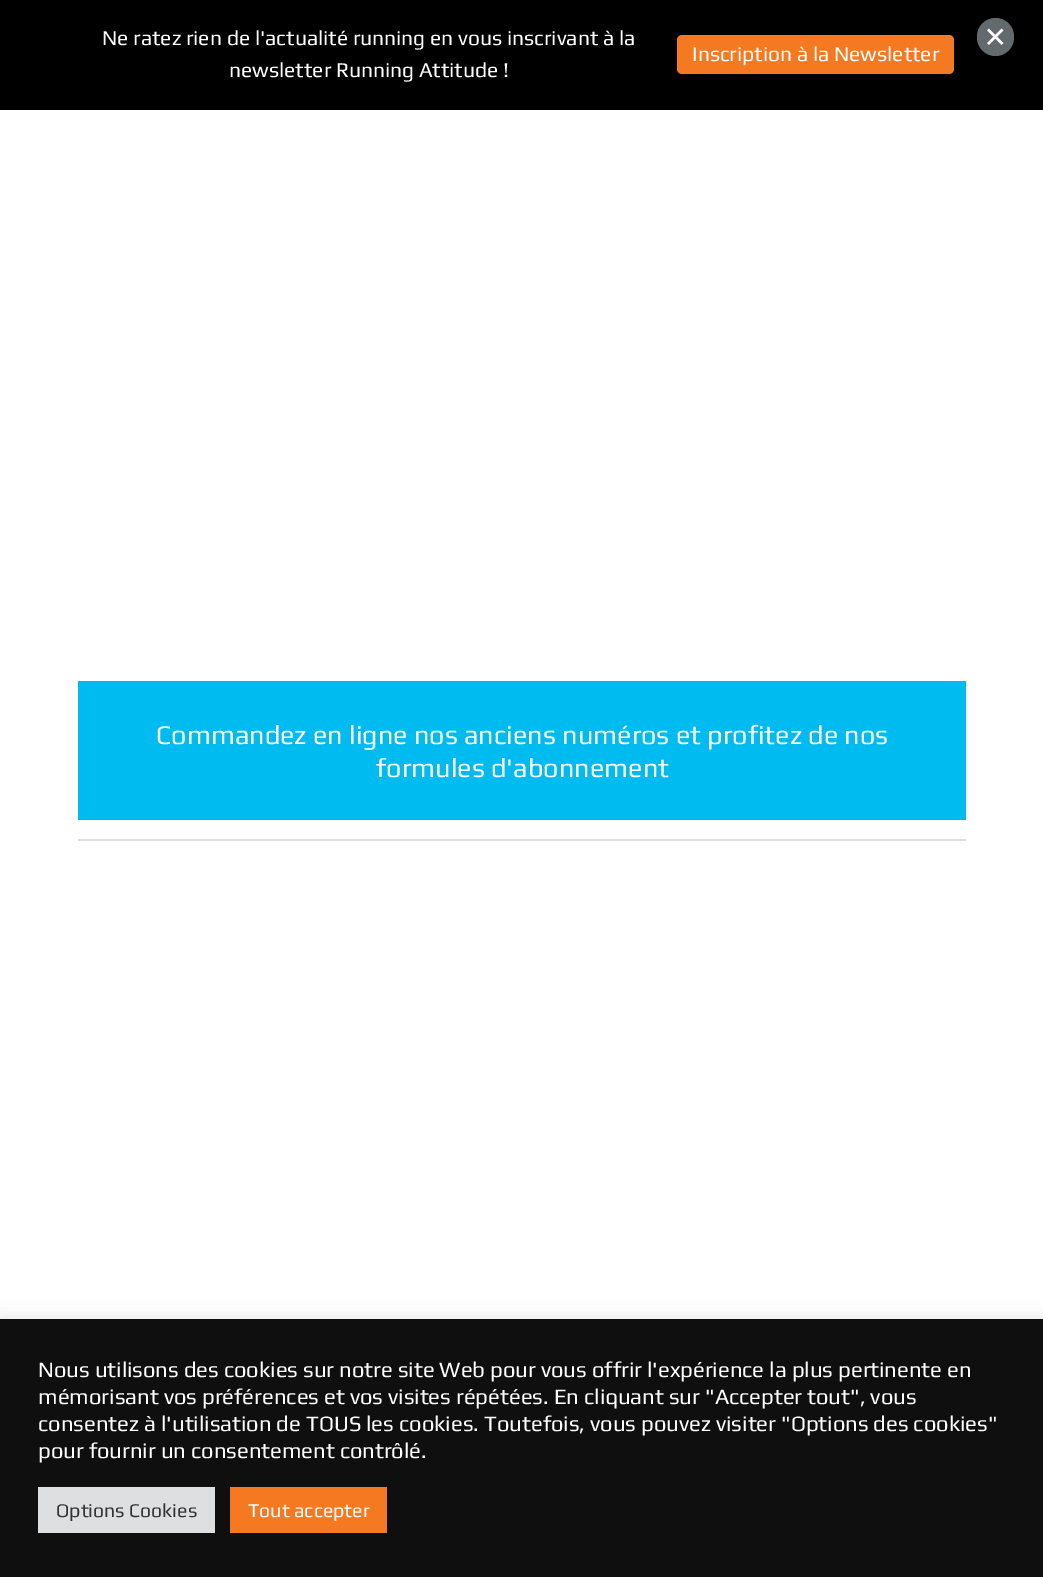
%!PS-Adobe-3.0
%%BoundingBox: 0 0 1043 1577
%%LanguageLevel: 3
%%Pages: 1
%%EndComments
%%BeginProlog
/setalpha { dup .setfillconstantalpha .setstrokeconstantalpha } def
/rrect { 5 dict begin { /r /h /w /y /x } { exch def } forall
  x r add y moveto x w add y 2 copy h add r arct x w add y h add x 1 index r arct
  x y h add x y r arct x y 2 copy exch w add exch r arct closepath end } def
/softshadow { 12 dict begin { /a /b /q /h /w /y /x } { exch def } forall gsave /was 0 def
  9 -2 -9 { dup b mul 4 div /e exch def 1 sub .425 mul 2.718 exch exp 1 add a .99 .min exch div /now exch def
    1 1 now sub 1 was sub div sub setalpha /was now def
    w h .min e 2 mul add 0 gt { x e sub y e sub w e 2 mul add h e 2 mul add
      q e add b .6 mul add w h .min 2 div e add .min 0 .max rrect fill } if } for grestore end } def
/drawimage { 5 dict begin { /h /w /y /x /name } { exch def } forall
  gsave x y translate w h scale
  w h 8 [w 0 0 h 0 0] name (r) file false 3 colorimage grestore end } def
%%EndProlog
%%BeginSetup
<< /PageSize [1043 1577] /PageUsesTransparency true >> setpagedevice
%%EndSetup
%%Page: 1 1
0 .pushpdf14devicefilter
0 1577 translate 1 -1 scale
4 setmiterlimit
1 setgray
0 0 1043 1577 rectfill
0 setgray
0 0 1043 110 rectfill
0.957 0.475 0.129 setrgbcolor
677 35 277 39 5 rrect fill
0.388 0.416 0.427 setrgbcolor
977 18 37 38 18.5 rrect fill
(images/1.raw) 987 28 17 17 drawimage
0 0.733 0.937 setrgbcolor
78 681 888 139 rectfill
0.867 setgray
78 839 888 2 rectfill
0.675 0.671 0.671 setrgbcolor
0 1317 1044 260 0 7.5 0.3 softshadow
0.059 setgray
0 1319 1043 258 rectfill
0.871 0.875 0.878 setrgbcolor
38 1487 177 46 rectfill
0.957 0.475 0.129 setrgbcolor
230 1487 157 46 rectfill
/Play-Regular [21 0 0 -21 0 0] selectfont
1 setgray
102 45 moveto (Ne ratez rien de l'actualité running en vous inscrivant à la) show
229 77 moveto (newsletter Running Attitude !) show
692 61 moveto (Inscription à la Newsletter) show
/Play-Regular [27 0 0 -27 0 0] selectfont
156 744 moveto (Commandez en ligne nos anciens numéros et profitez de nos) show
376 777 moveto (formules d'abonnement) show
/Play-Regular [22 0 0 -22 0 0] selectfont
38 1377 moveto (Nous utilisons des cookies sur notre site Web pour vous offrir l'expérience la plus pertinente en) show
38 1404 moveto (mémorisant vos préférences et vos visites répétées. En cliquant sur "Accepter tout", vous) show
38 1431 moveto (consentez à l'utilisation de TOUS les cookies. Toutefois, vous pouvez visiter "Options des cookies") show
38 1458 moveto (pour fournir un consentement contrôlé.) show
/Play-Regular [19.5 0 0 -19.5 0 0] selectfont
0.2 setgray
56 1517 moveto (Options Cookies) show
1 setgray
248 1517 moveto (Tout accepter) show
.poppdf14devicefilter showpage
%%EOF
